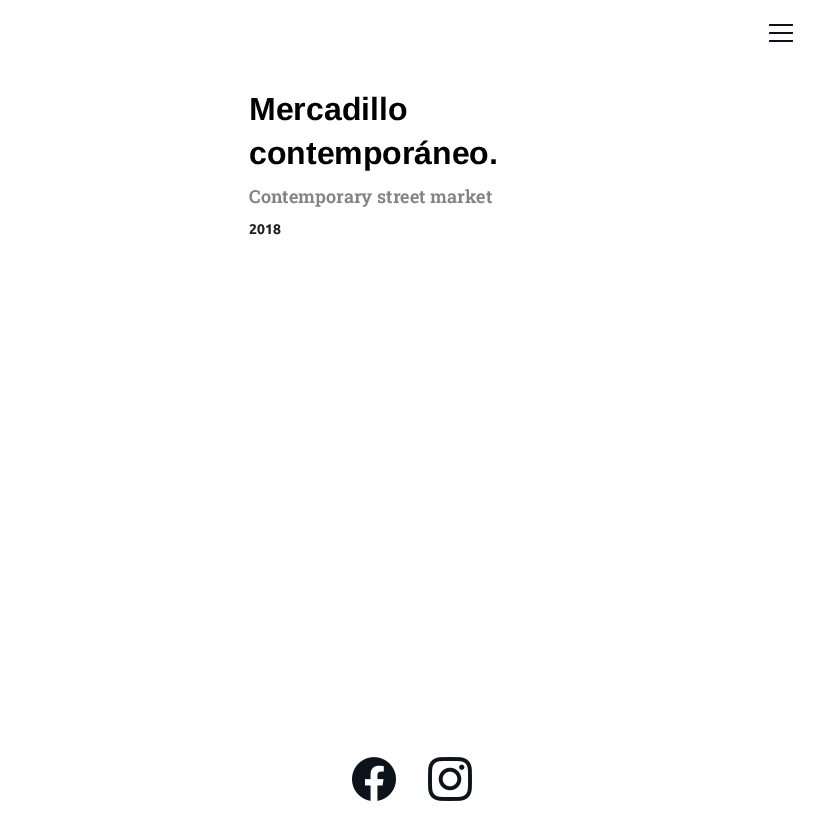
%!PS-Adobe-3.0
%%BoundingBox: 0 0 825 825
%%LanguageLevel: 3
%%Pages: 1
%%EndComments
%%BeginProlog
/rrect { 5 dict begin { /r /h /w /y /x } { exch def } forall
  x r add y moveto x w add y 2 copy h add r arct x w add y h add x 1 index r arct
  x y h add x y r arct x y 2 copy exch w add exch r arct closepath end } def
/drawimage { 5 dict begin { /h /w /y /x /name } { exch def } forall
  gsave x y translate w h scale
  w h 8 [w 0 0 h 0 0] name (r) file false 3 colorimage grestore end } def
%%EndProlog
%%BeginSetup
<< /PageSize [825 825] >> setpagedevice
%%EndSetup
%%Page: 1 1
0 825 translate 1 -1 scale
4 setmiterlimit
1 setgray
0 0 825 825 rectfill
0.051 0.075 0.102 setrgbcolor
769 24 24 2 1 rrect fill
769 32 24 2 1 rrect fill
769 40 24 2 1 rrect fill
(images/1.raw) 352 757 44 44 drawimage
(images/2.raw) 428 757 44 44 drawimage
/LiberationSans-Bold [32 0 0 -32 0 0] selectfont
0 setgray
249 120 moveto (Mercadillo) show
249 164 moveto (contemporáneo.) show
/RobotoSlab-SemiBold [18 0 0 -18 0 0] selectfont
0.522 0.51 0.522 setrgbcolor
249 203 moveto (Contemporary street market) show
/Ubuntu-Bold [14 0 0 -14 0 0] selectfont
0.114 0.118 0.125 setrgbcolor
249 234 moveto (2018) show
showpage
%%EOF
